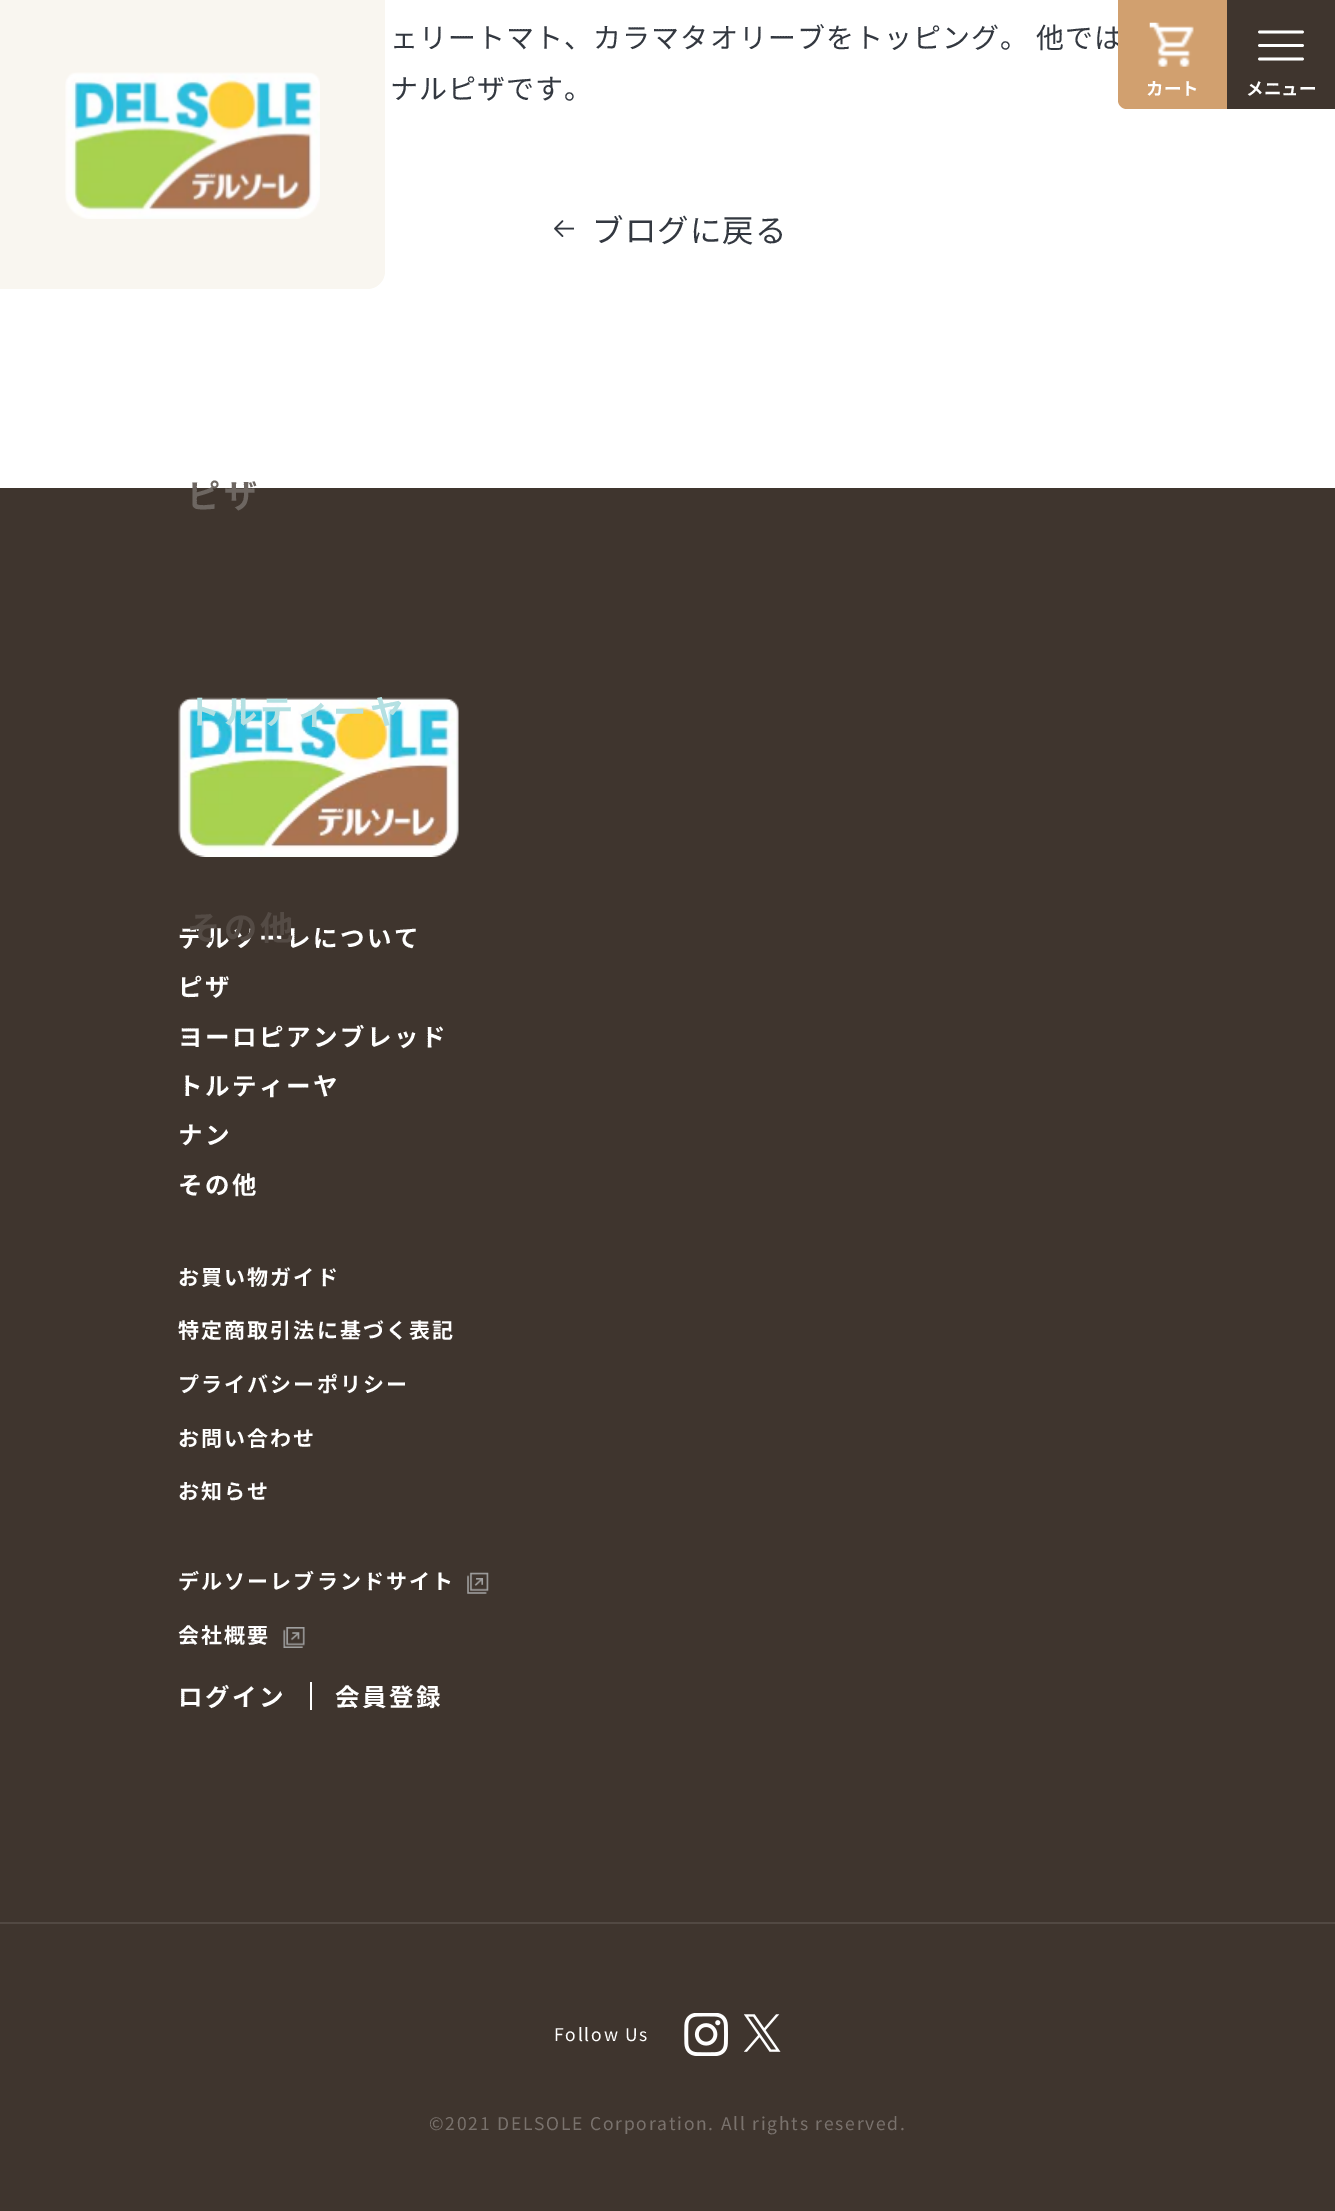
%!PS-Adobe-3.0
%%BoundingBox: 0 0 1335 2211
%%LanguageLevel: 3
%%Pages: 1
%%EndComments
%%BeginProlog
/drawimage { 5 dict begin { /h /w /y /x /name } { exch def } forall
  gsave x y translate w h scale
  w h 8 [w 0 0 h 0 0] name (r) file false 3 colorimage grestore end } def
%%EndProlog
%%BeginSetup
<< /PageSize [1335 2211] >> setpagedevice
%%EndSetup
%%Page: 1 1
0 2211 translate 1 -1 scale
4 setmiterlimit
1 setgray
0 0 1335 2211 rectfill
(images/1.raw) 554 220 20 17 drawimage
0.976 0.965 0.941 setrgbcolor
newpath 0 0 moveto 385 0 lineto 385 271 lineto 385 281 377 289 367 289 curveto 0 289 lineto closepath fill
(images/2.raw) 65 72 255 147 drawimage
0.247 0.208 0.18 setrgbcolor
1227 0 108 109 rectfill
1 setgray
2.7 setlinewidth
1 setlinecap
newpath 1259.5 32 moveto 1302.5 32 lineto 1259.5 45.5 moveto 1302.5 45.5 lineto 1259.5 59 moveto 1302.5 59 lineto stroke
0.247 0.208 0.18 setrgbcolor
0 488 1335 1434 rectfill
(images/4.raw) 178 697 281 160 drawimage
(images/5.raw) 467 1572 22 22 drawimage
(images/6.raw) 283 1627 22 21 drawimage
1 setgray
310 1682 2 28 rectfill
0.247 0.208 0.18 setrgbcolor
0 1924 1335 287 rectfill
0.322 0.286 0.263 setrgbcolor
0 1922 1335 2 rectfill
(images/7.raw) 684 2013 44 43 drawimage
(images/8.raw) 744 2014 37 38 drawimage
/NotoSansJP-Regular [28 0 0 -28 0 0] selectfont
0.2 0.22 0.251 setrgbcolor
390 48 moveto 1.05 0 (ェリートマト、カラマタオリーブをトッピング。 他では) ashow
390 99 moveto 1.05 0 (ナルピザです。) ashow
/NotoSansJP-Regular [31.5 0 0 -31.5 0 0] selectfont
592 242 moveto 1.05 0 (ブログに戻る) ashow
0.82 0.627 0.435 setrgbcolor
newpath 1118 0 moveto 1227 0 lineto 1227 109 lineto 1127 109 lineto 1122 109 1118 105 1118 100 curveto closepath fill
(images/3.raw) 1149 22 45 45 drawimage
/NotoSansJP-Bold [17.5 0 0 -17.5 0 0] selectfont
1 setgray
1146 95 moveto (カート) show
1246 95 moveto (メニュー) show
/NotoSansJP-Bold [33.25 0 0 -33.25 0 0] selectfont
0.427 0.4 0.38 setrgbcolor
187 508 moveto 3.25 0 (ピザ) ashow
0.706 0.878 0.886 setrgbcolor
187 724 moveto 3.25 0 (トルティーヤ) ashow
/NotoSansJP-Bold [24.5 0 0 -24.5 0 0] selectfont
1 setgray
178 947 moveto 2.5 0 (デルソーレについて) ashow
/NotoSansJP-Bold [33.25 0 0 -33.25 0 0] selectfont
0.329 0.294 0.271 setrgbcolor
187 940 moveto 3.25 0 (その他) ashow
/NotoSansJP-Bold [24.5 0 0 -24.5 0 0] selectfont
1 setgray
178 996 moveto 2.5 0 (ピザ) ashow
178 1046 moveto 2.5 0 (ヨーロピアンブレッド) ashow
178 1095 moveto 2.5 0 (トルティーヤ) ashow
178 1144 moveto 2.5 0 (ナン) ashow
178 1194 moveto 2.5 0 (その他) ashow
/NotoSansJP-Bold [21 0 0 -21 0 0] selectfont
178 1285 moveto 2.1 0 (お買い物ガイド) ashow
178 1338 moveto 2.1 0 (特定商取引法に基づく表記) ashow
178 1392 moveto 2.1 0 (プライバシーポリシー) ashow
178 1446 moveto 2.1 0 (お問い合わせ) ashow
178 1499 moveto 2.1 0 (お知らせ) ashow
178 1589 moveto 2.1 0 (デルソーレブランドサイト) ashow
178 1643 moveto 2.1 0 (会社概要) ashow
/NotoSansJP-Bold [24.5 0 0 -24.5 0 0] selectfont
178 1706 moveto 2.5 0 (ログイン) ashow
335 1706 moveto 2.5 0 (会員登録) ashow
/NotoSansJP-Regular [17.5 0 0 -17.5 0 0] selectfont
554 2041 moveto 1.75 0 (Follow Us) ashow
0.475 0.447 0.427 setrgbcolor
429 2130 moveto 1.75 0 (©2021 DELSOLE Corporation. All rights reserved.) ashow
showpage
%%EOF
